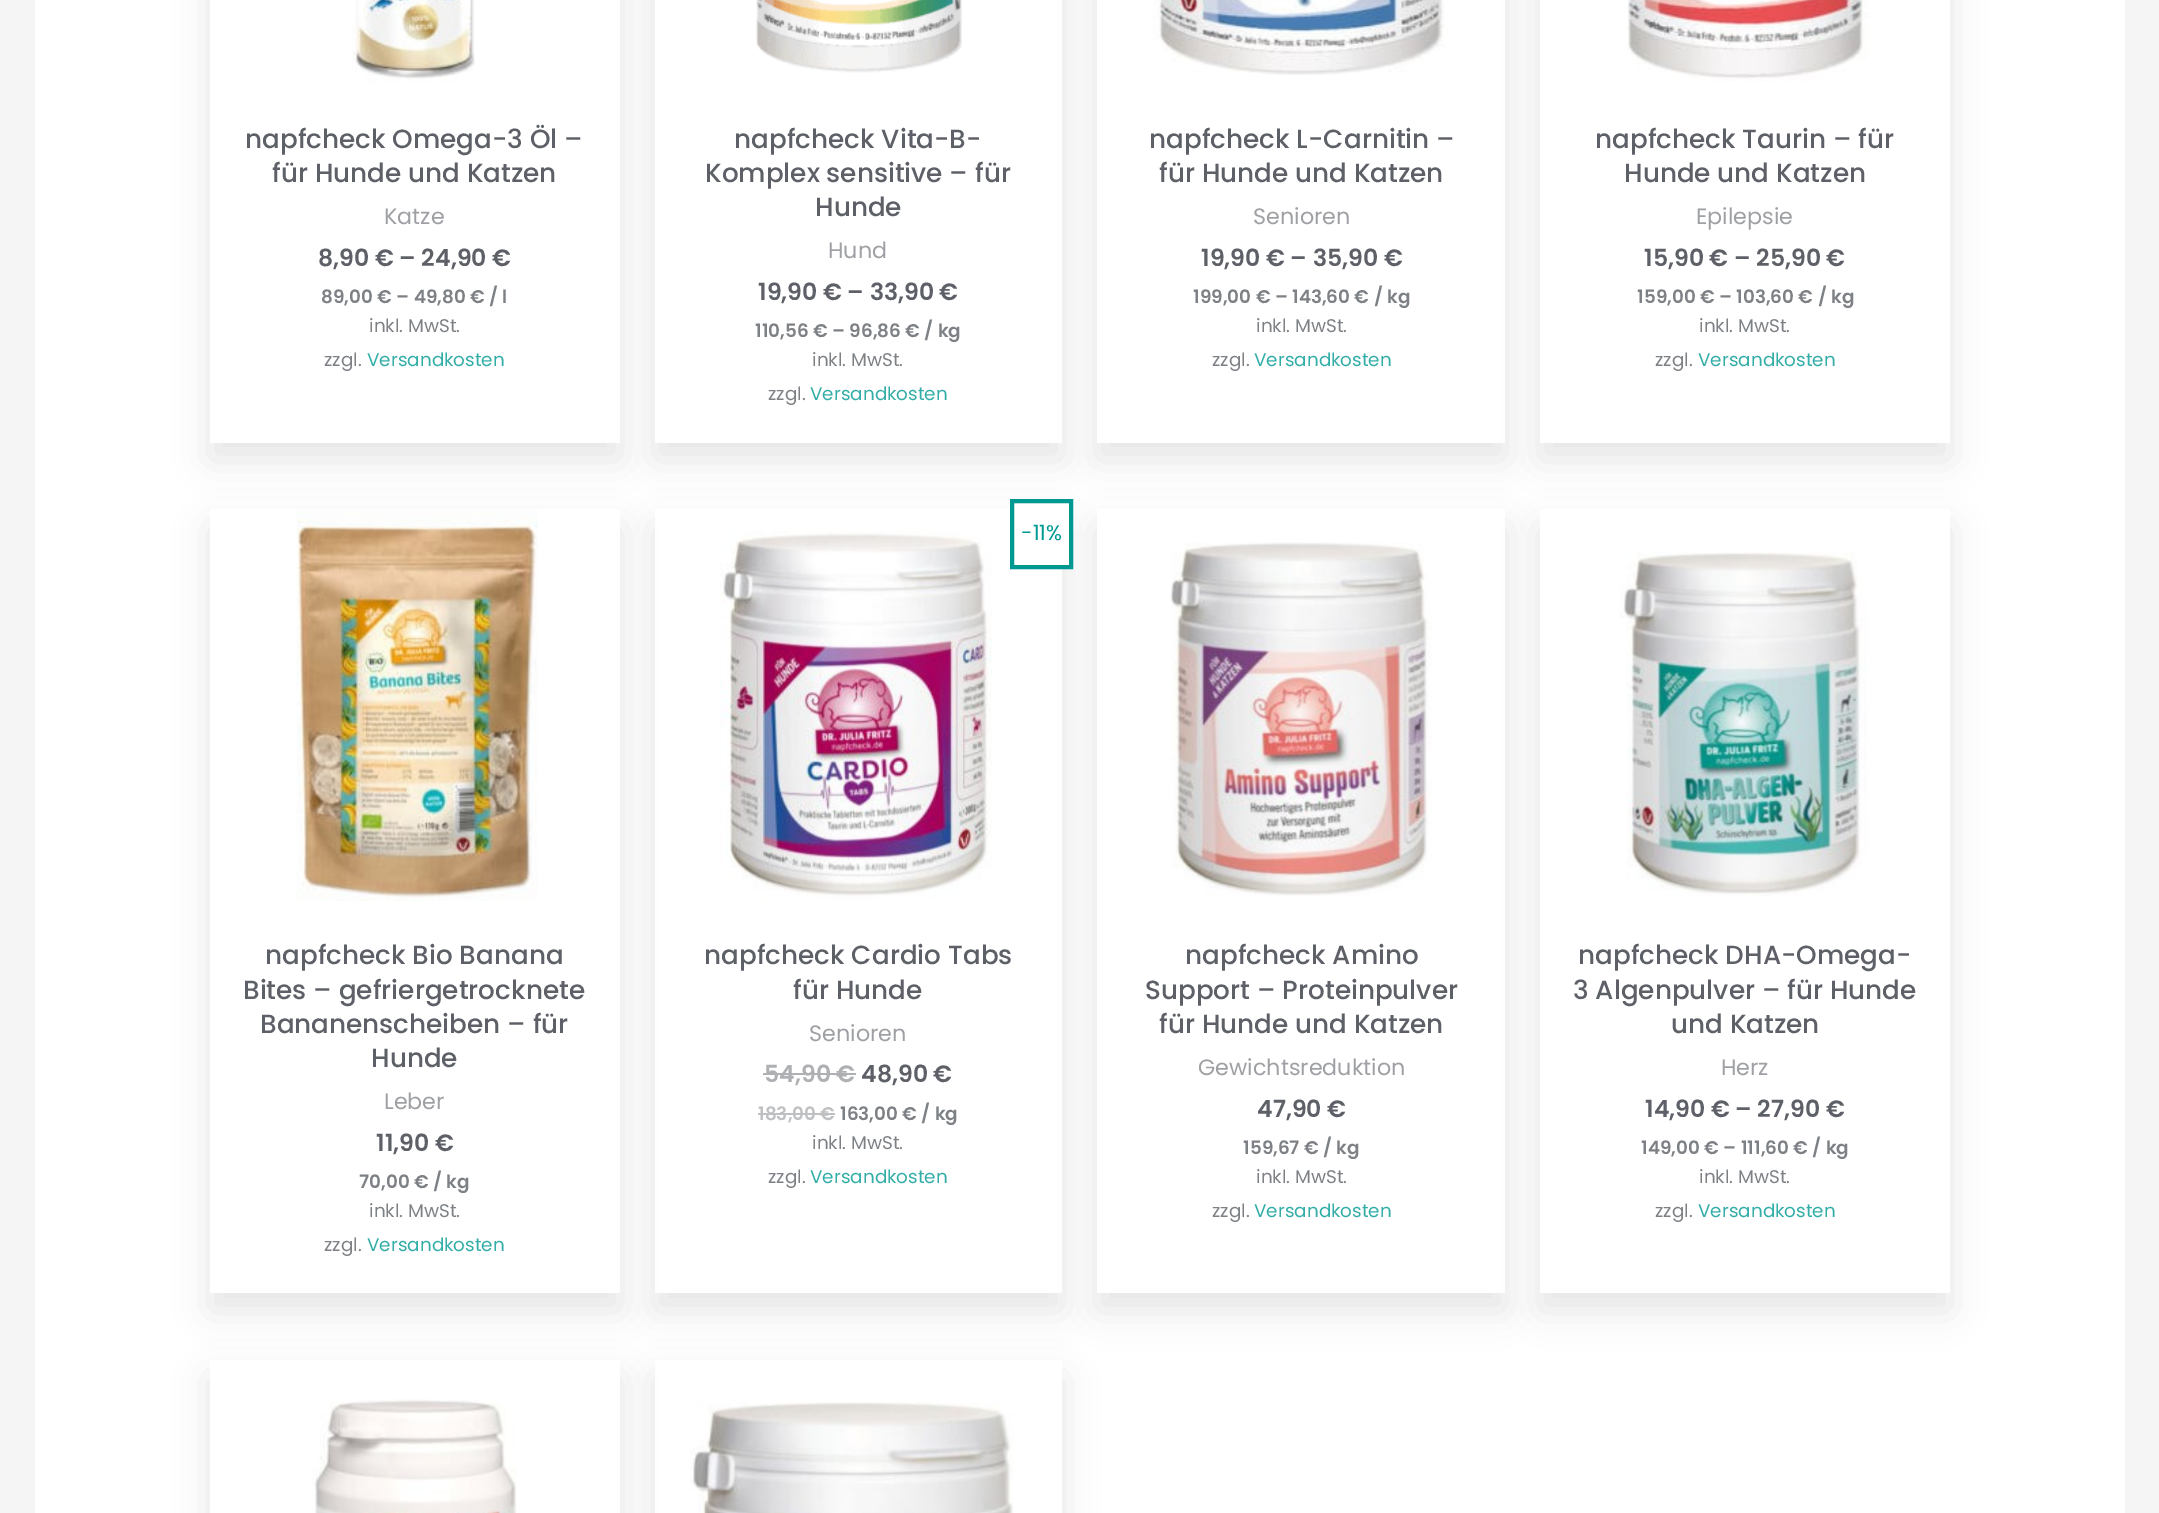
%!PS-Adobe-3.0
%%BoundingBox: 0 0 2159 1513
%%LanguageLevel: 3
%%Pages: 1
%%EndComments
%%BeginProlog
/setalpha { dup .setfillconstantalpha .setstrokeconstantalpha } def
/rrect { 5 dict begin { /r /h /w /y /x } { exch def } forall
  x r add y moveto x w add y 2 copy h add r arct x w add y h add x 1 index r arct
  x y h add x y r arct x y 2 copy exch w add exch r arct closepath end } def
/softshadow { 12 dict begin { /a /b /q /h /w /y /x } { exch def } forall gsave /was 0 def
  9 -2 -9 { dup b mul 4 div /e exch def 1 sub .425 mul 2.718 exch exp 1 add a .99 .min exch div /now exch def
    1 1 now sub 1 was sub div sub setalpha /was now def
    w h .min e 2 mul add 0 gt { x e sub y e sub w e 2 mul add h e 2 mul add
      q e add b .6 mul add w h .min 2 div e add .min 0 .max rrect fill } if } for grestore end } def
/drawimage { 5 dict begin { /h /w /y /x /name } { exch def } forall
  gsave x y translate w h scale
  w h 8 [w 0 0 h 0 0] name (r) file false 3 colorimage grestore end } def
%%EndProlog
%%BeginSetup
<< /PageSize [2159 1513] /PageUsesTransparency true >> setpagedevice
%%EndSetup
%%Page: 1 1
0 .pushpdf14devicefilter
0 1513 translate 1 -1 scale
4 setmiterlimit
0.961 setgray
0 0 2159 1513 rectfill
1 setgray
35 0 2090 1513 rectfill
0 setgray
210 -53 410 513 0 17.5 0.1 softshadow
1 setgray
210 0 410 443 rectfill
(images/1.raw) 352 0 123 83 drawimage
0 setgray
655 -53 407 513 0 17.5 0.1 softshadow
1 setgray
655 0 407 443 rectfill
(images/2.raw) 756 0 206 73 drawimage
0 setgray
1097 -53 408 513 0 17.5 0.1 softshadow
1 setgray
1097 0 408 443 rectfill
(images/3.raw) 1153 0 292 75 drawimage
0 setgray
1540 -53 410 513 0 17.5 0.1 softshadow
1 setgray
1540 0 410 443 rectfill
(images/4.raw) 1627 0 241 82 drawimage
0 setgray
210 527 410 784 0 17.5 0.1 softshadow
1 setgray
210 509 410 784 rectfill
(images/5.raw) 296 510 242 391 drawimage
gsave
newpath 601 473 moveto 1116 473 lineto 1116 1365 lineto 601 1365 lineto closepath 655 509 moveto 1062 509 lineto 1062 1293 lineto 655 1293 lineto closepath eoclip newpath
0 setgray
655 527 407 784 0 17.5 0.1 softshadow
grestore
(images/6.raw) 719 531 273 369 drawimage
0 setgray
1097 527 408 784 0 17.5 0.1 softshadow
1 setgray
1014 504 55 61 rectfill
0 0.6 0.569 setrgbcolor
4 setlinewidth
1012 501 59 66 rectstroke
0.682 0.69 0.702 setrgbcolor
763 1073 74 2 rectfill
837 1073 19 2 rectfill
0.745 0.753 0.761 setrgbcolor
758 1113 77 2 rectfill
1 setgray
1097 509 408 784 rectfill
(images/7.raw) 1170 542 262 354 drawimage
0 setgray
1540 527 410 784 0 17.5 0.1 softshadow
1 setgray
1540 509 410 784 rectfill
(images/8.raw) 1620 552 247 344 drawimage
0 setgray
210 1377 410 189 0 17.5 0.1 softshadow
1 setgray
210 1360 410 153 rectfill
(images/9.raw) 313 1399 203 114 drawimage
gsave
newpath 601 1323 moveto 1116 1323 lineto 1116 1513 lineto 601 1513 lineto closepath 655 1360 moveto 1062 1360 lineto 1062 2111 lineto 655 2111 lineto closepath eoclip newpath
0 setgray
655 1377 407 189 0 17.5 0.1 softshadow
grestore
(images/10.raw) 690 1402 324 111 drawimage
/Poppins-Medium [26.25 0 0 -26.25 0 0] selectfont
0.365 0.376 0.404 setrgbcolor
245 148 moveto (napfcheck Omega-3 Öl –) show
272 182 moveto (für Hunde und Katzen) show
/Poppins-Regular [22.25 0 0 -22.25 0 0] selectfont
0.62 0.627 0.643 setrgbcolor
384 224 moveto (Katze) show
/Poppins-SemiBold [23.6 0 0 -23.6 0 0] selectfont
0.365 0.376 0.404 setrgbcolor
318 266 moveto (8,90 € – 24,90 €) show
/Poppins-SemiBold [18.4 0 0 -18.4 0 0] selectfont
0.49 0.506 0.522 setrgbcolor
321 303 moveto (89,00 € – 49,80 € / l) show
/Poppins-Regular [18.4 0 0 -18.4 0 0] selectfont
369 332 moveto (inkl. MwSt.) show
324 366 moveto (zzgl.) show
0.2 0.678 0.655 setrgbcolor
367 366 moveto (Versandkosten) show
/Poppins-Medium [26.25 0 0 -26.25 0 0] selectfont
0.365 0.376 0.404 setrgbcolor
734 148 moveto (napfcheck Vita-B-) show
705 182 moveto (Komplex sensitive – für) show
815 216 moveto (Hunde) show
/Poppins-Regular [22.25 0 0 -22.25 0 0] selectfont
0.62 0.627 0.643 setrgbcolor
828 258 moveto (Hund) show
/Poppins-SemiBold [23.6 0 0 -23.6 0 0] selectfont
0.365 0.376 0.404 setrgbcolor
758 300 moveto (19,90 € – 33,90 €) show
/Poppins-SemiBold [18.4 0 0 -18.4 0 0] selectfont
0.49 0.506 0.522 setrgbcolor
755 337 moveto (110,56 € – 96,86 € / kg) show
/Poppins-Regular [18.4 0 0 -18.4 0 0] selectfont
812 366 moveto (inkl. MwSt.) show
768 400 moveto (zzgl.) show
0.2 0.678 0.655 setrgbcolor
810 400 moveto (Versandkosten) show
/Poppins-Medium [26.25 0 0 -26.25 0 0] selectfont
0.365 0.376 0.404 setrgbcolor
1149 148 moveto (napfcheck L-Carnitin –) show
1159 182 moveto (für Hunde und Katzen) show
/Poppins-Regular [22.25 0 0 -22.25 0 0] selectfont
0.62 0.627 0.643 setrgbcolor
1253 224 moveto (Senioren) show
/Poppins-SemiBold [23.6 0 0 -23.6 0 0] selectfont
0.365 0.376 0.404 setrgbcolor
1201 266 moveto (19,90 € – 35,90 €) show
/Poppins-SemiBold [18.4 0 0 -18.4 0 0] selectfont
0.49 0.506 0.522 setrgbcolor
1193 303 moveto (199,00 € – 143,60 € / kg) show
/Poppins-Regular [18.4 0 0 -18.4 0 0] selectfont
1256 332 moveto (inkl. MwSt.) show
1212 366 moveto (zzgl.) show
0.2 0.678 0.655 setrgbcolor
1254 366 moveto (Versandkosten) show
/Poppins-Medium [26.25 0 0 -26.25 0 0] selectfont
0.365 0.376 0.404 setrgbcolor
1595 148 moveto (napfcheck Taurin – für) show
1624 182 moveto (Hunde und Katzen) show
/Poppins-Regular [22.25 0 0 -22.25 0 0] selectfont
0.62 0.627 0.643 setrgbcolor
1696 224 moveto (Epilepsie) show
/Poppins-SemiBold [23.6 0 0 -23.6 0 0] selectfont
0.365 0.376 0.404 setrgbcolor
1644 266 moveto (15,90 € – 25,90 €) show
/Poppins-SemiBold [18.4 0 0 -18.4 0 0] selectfont
0.49 0.506 0.522 setrgbcolor
1637 303 moveto (159,00 € – 103,60 € / kg) show
/Poppins-Regular [18.4 0 0 -18.4 0 0] selectfont
1699 332 moveto (inkl. MwSt.) show
1655 366 moveto (zzgl.) show
0.2 0.678 0.655 setrgbcolor
1698 366 moveto (Versandkosten) show
/Poppins-Medium [26.25 0 0 -26.25 0 0] selectfont
0.365 0.376 0.404 setrgbcolor
265 964 moveto (napfcheck Bio Banana) show
243 999 moveto (Bites – gefriergetrocknete) show
260 1033 moveto (Bananenscheiben – für) show
371 1067 moveto (Hunde) show
/Poppins-Regular [22.25 0 0 -22.25 0 0] selectfont
0.62 0.627 0.643 setrgbcolor
384 1109 moveto (Leber) show
/Poppins-SemiBold [23.6 0 0 -23.6 0 0] selectfont
0.365 0.376 0.404 setrgbcolor
376 1151 moveto (11,90 €) show
/Poppins-SemiBold [18.4 0 0 -18.4 0 0] selectfont
0.49 0.506 0.522 setrgbcolor
359 1188 moveto (70,00 € / kg) show
/Poppins-Regular [18.4 0 0 -18.4 0 0] selectfont
369 1217 moveto (inkl. MwSt.) show
324 1251 moveto (zzgl.) show
0.2 0.678 0.655 setrgbcolor
367 1251 moveto (Versandkosten) show
/Poppins-Regular [21 0 0 -21 0 0] selectfont
0 0.6 0.569 setrgbcolor
1021 540 moveto (-11%) show
/Poppins-Medium [26.25 0 0 -26.25 0 0] selectfont
0.365 0.376 0.404 setrgbcolor
704 964 moveto (napfcheck Cardio Tabs) show
793 999 moveto (für Hunde) show
/Poppins-Regular [22.25 0 0 -22.25 0 0] selectfont
0.62 0.627 0.643 setrgbcolor
809 1041 moveto (Senioren) show
/Poppins-SemiBold [23.6 0 0 -23.6 0 0] selectfont
0.682 0.69 0.702 setrgbcolor
764 1082 moveto (54,90) show
836 1082 moveto (€) show
0.365 0.376 0.404 setrgbcolor
861 1082 moveto (48,90 €) show
/Poppins-SemiBold [18.4 0 0 -18.4 0 0] selectfont
0.745 0.753 0.761 setrgbcolor
758 1120 moveto (183,00 €) show
0.49 0.506 0.522 setrgbcolor
840 1120 moveto (163,00 € / kg) show
/Poppins-Regular [18.4 0 0 -18.4 0 0] selectfont
812 1149 moveto (inkl. MwSt.) show
768 1183 moveto (zzgl.) show
0.2 0.678 0.655 setrgbcolor
810 1183 moveto (Versandkosten) show
/Poppins-Medium [26.25 0 0 -26.25 0 0] selectfont
0.365 0.376 0.404 setrgbcolor
1185 964 moveto (napfcheck Amino) show
1145 999 moveto (Support – Proteinpulver) show
1159 1033 moveto (für Hunde und Katzen) show
/Poppins-Regular [22.25 0 0 -22.25 0 0] selectfont
0.62 0.627 0.643 setrgbcolor
1198 1075 moveto (Gewichtsreduktion) show
/Poppins-SemiBold [23.6 0 0 -23.6 0 0] selectfont
0.365 0.376 0.404 setrgbcolor
1257 1117 moveto (47,90 €) show
/Poppins-SemiBold [18.4 0 0 -18.4 0 0] selectfont
0.49 0.506 0.522 setrgbcolor
1243 1154 moveto (159,67 € / kg) show
/Poppins-Regular [18.4 0 0 -18.4 0 0] selectfont
1256 1183 moveto (inkl. MwSt.) show
1212 1217 moveto (zzgl.) show
0.2 0.678 0.655 setrgbcolor
1254 1217 moveto (Versandkosten) show
/Poppins-Medium [26.25 0 0 -26.25 0 0] selectfont
0.365 0.376 0.404 setrgbcolor
1578 964 moveto (napfcheck DHA-Omega-) show
1573 999 moveto (3 Algenpulver – für Hunde) show
1671 1033 moveto (und Katzen) show
/Poppins-Regular [22.25 0 0 -22.25 0 0] selectfont
0.62 0.627 0.643 setrgbcolor
1721 1075 moveto (Herz) show
/Poppins-SemiBold [23.6 0 0 -23.6 0 0] selectfont
0.365 0.376 0.404 setrgbcolor
1645 1117 moveto (14,90 € – 27,90 €) show
/Poppins-SemiBold [18.4 0 0 -18.4 0 0] selectfont
0.49 0.506 0.522 setrgbcolor
1641 1154 moveto (149,00 € – 111,60 € / kg) show
/Poppins-Regular [18.4 0 0 -18.4 0 0] selectfont
1699 1183 moveto (inkl. MwSt.) show
1655 1217 moveto (zzgl.) show
0.2 0.678 0.655 setrgbcolor
1698 1217 moveto (Versandkosten) show
.poppdf14devicefilter showpage
%%EOF
